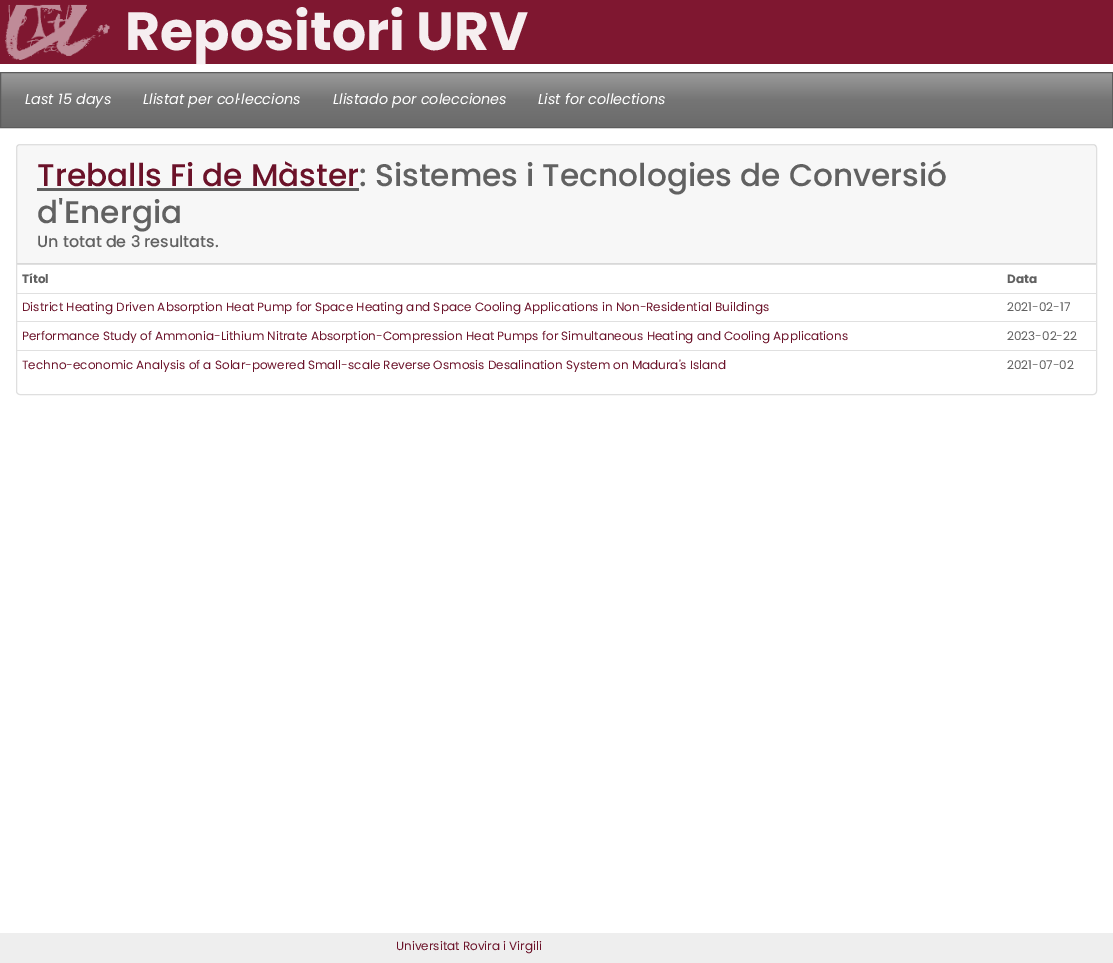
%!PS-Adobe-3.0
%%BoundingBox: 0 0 1113 963
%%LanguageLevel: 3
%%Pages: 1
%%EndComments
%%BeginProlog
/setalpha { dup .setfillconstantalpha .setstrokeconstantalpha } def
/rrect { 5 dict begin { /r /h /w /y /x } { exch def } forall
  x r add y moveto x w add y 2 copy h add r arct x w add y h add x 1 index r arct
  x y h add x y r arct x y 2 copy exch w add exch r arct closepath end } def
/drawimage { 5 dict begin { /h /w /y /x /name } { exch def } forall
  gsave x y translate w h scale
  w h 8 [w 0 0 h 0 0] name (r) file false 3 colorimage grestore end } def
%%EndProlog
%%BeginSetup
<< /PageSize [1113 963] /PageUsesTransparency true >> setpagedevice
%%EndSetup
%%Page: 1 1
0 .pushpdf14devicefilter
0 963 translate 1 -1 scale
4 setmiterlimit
1 setgray
0 0 1113 963 rectfill
0.498 0.09 0.188 setrgbcolor
0 0 1113 64 rectfill
(images/1.raw) 5 4 105 56 drawimage
gsave newpath 1 73 moveto 1112 73 lineto 1112 127 lineto 1 127 lineto closepath clip newpath
<< /ShadingType 2 /ColorSpace /DeviceRGB /Coords [557 73 557 127] /Extend [true true] /Function << /FunctionType 3 /Domain [0 1] /Functions [<< /FunctionType 2 /Domain [0 1] /C0 [0.608 0.608 0.608] /C1 [0.459 0.459 0.459] /N 1 >> << /FunctionType 2 /Domain [0 1] /C0 [0.459 0.459 0.459] /C1 [0.42 0.42 0.42] /N 1 >>] /Bounds [0.5] /Encode [0 1 0 1] >> >> shfill grestore
0.361 setgray
0.5 72.5 1112 55 rectstroke
0.875 setgray
16.5 144.5 1080 250 3.5 rrect stroke
0.03 setalpha
0 setgray
17 145 1079 118 rectfill
1 setalpha
0.847 setgray
17 263 1079 1 rectfill
0.38 setgray
37 188 322 3 rectfill
0.878 setgray
17 264 1080 1 rectfill
17 293 1080 1 rectfill
17 321 1080 1 rectfill
17 350 1080 1 rectfill
0.933 setgray
0 933 1113 30 rectfill
/Poppins-Bold [53.75 0 0 -53.75 0 0] selectfont
0.965 0.933 0.941 setrgbcolor
125 50 moveto (Repositori URV) show
/Poppins-Italic [14.4 0 0 -14.4 0 0] selectfont
1 setgray
25 104 moveto (Last 15 days) show
143 104 moveto (Llistat per col·leccions) show
333 104 moveto (Llistado por colecciones) show
538 104 moveto (List for collections) show
/Poppins-Medium [31.25 0 0 -31.25 0 0] selectfont
0.42 0.071 0.161 setrgbcolor
37 186 moveto (Treballs Fi de Màster) show
0.38 setgray
359 186 moveto (: Sistemes i Tecnologies de Conversió) show
37 223 moveto (d'Energia) show
/Poppins-Medium [16 0 0 -16 0 0] selectfont
37 247 moveto (Un totat de 3 resultats.) show
/Poppins-Bold [12 0 0 -12 0 0] selectfont
22 283 moveto (Títol) show
1007 283 moveto (Data) show
/Poppins-Regular [12 0 0 -12 0 0] selectfont
0.42 0.071 0.161 setrgbcolor
22 311 moveto (District Heating Driven Absorption Heat Pump for Space Heating and Space Cooling Applications in Non-Residential Buildings) show
0.38 setgray
1007 311 moveto (2021-02-17) show
0.42 0.071 0.161 setrgbcolor
22 340 moveto (Performance Study of Ammonia-Lithium Nitrate Absorption-Compression Heat Pumps for Simultaneous Heating and Cooling Applications) show
0.38 setgray
1007 340 moveto (2023-02-22) show
0.42 0.071 0.161 setrgbcolor
22 369 moveto (Techno-economic Analysis of a Solar-powered Small-scale Reverse Osmosis Desalination System on Madura's Island) show
0.38 setgray
1007 369 moveto (2021-07-02) show
0.42 0.071 0.161 setrgbcolor
396 950 moveto (Universitat Rovira i Virgili) show
.poppdf14devicefilter showpage
%%EOF
